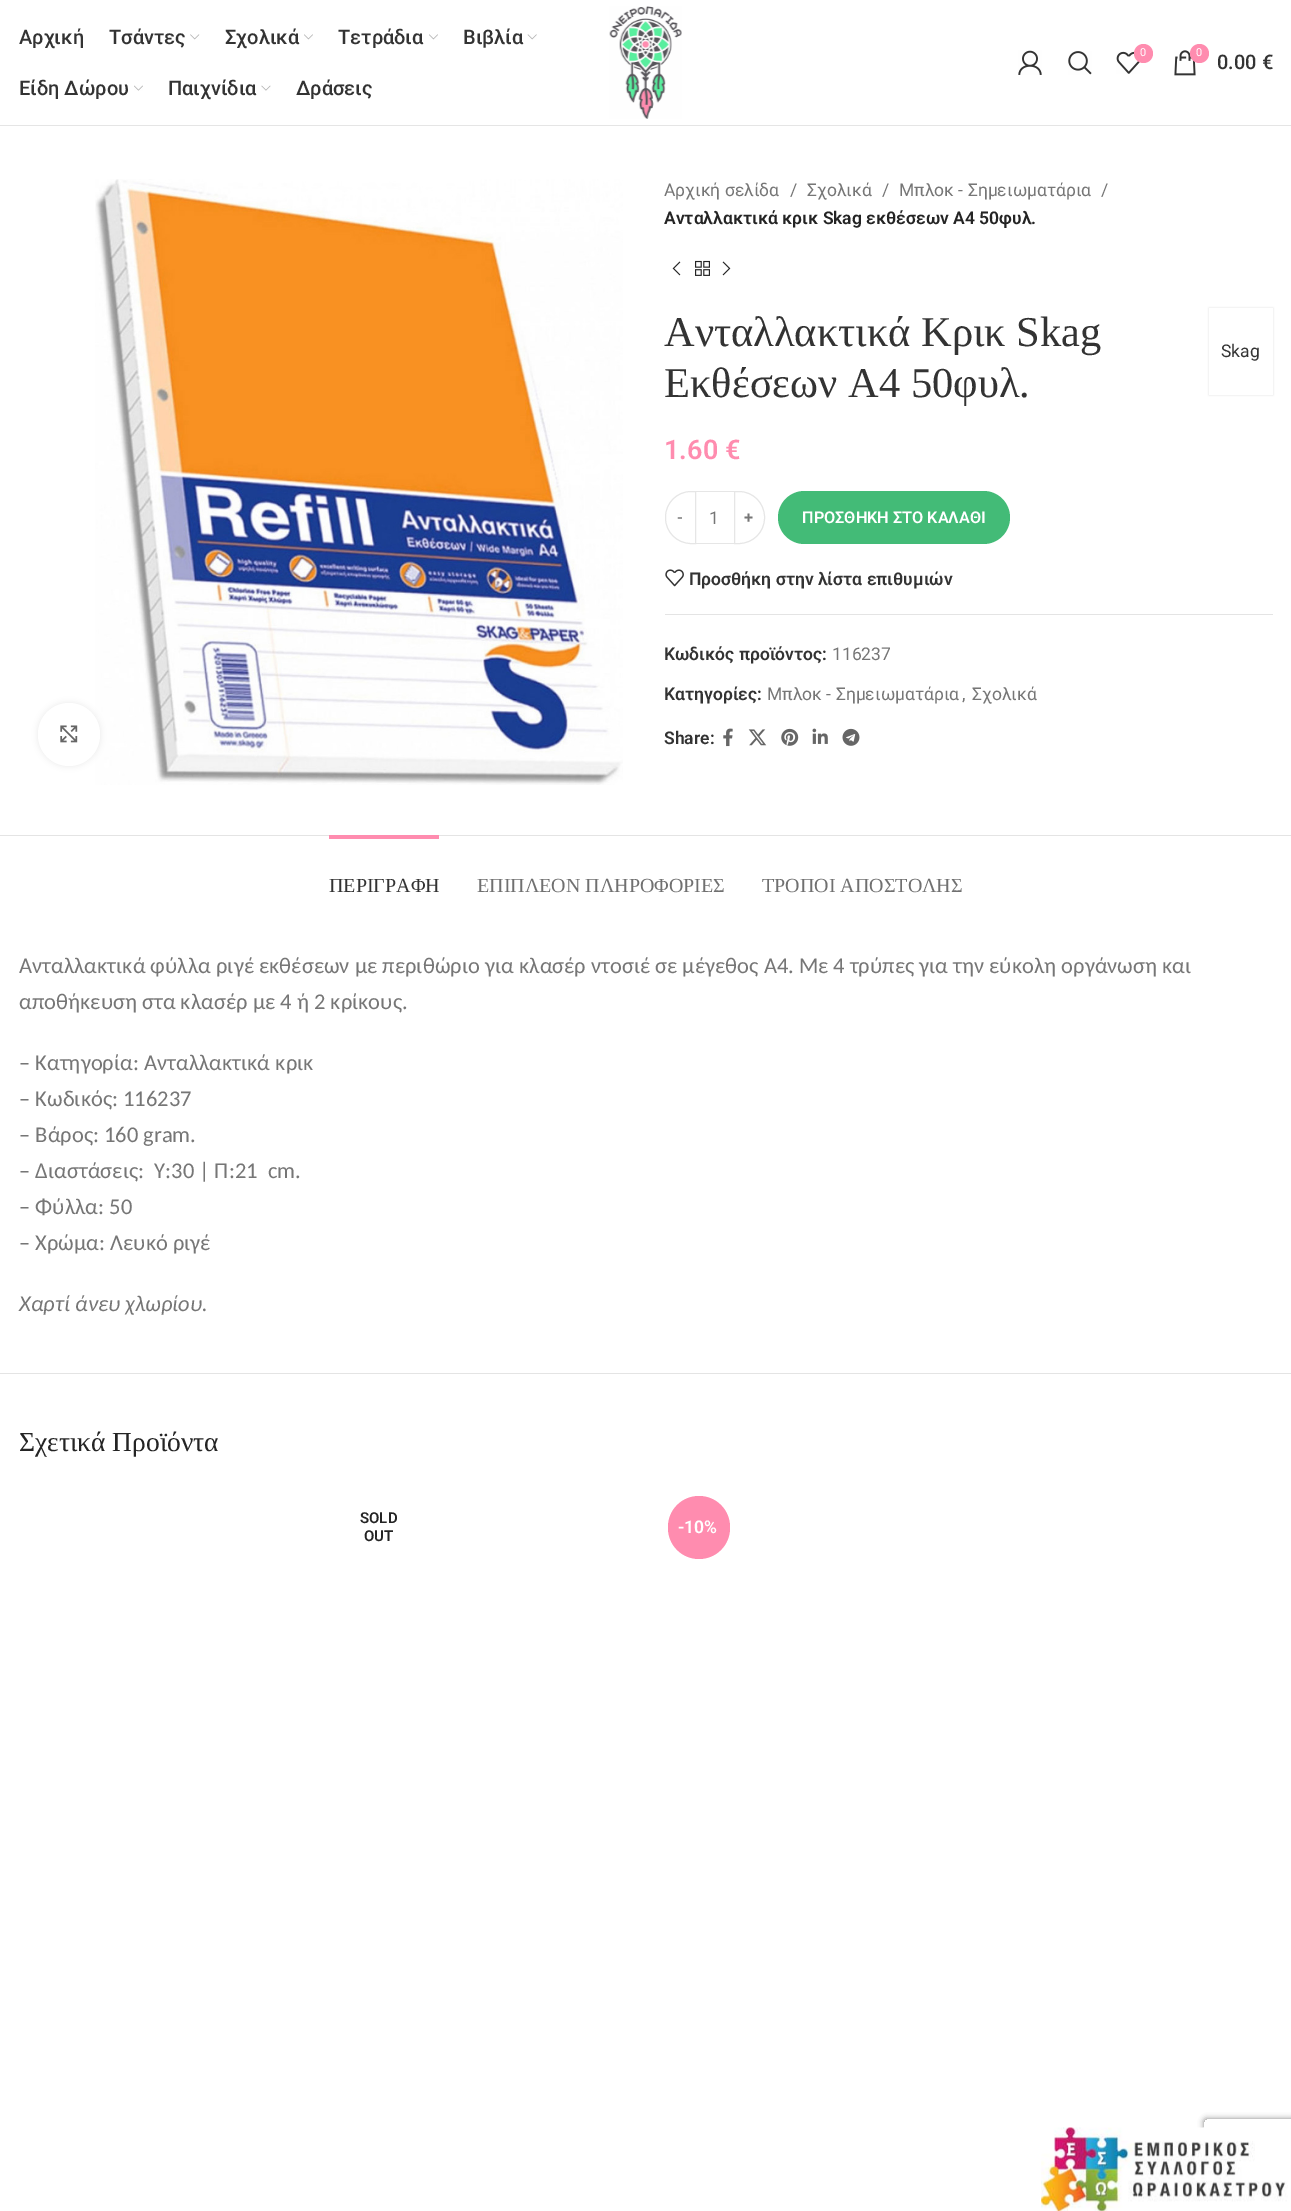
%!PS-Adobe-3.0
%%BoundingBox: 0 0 1291 2211
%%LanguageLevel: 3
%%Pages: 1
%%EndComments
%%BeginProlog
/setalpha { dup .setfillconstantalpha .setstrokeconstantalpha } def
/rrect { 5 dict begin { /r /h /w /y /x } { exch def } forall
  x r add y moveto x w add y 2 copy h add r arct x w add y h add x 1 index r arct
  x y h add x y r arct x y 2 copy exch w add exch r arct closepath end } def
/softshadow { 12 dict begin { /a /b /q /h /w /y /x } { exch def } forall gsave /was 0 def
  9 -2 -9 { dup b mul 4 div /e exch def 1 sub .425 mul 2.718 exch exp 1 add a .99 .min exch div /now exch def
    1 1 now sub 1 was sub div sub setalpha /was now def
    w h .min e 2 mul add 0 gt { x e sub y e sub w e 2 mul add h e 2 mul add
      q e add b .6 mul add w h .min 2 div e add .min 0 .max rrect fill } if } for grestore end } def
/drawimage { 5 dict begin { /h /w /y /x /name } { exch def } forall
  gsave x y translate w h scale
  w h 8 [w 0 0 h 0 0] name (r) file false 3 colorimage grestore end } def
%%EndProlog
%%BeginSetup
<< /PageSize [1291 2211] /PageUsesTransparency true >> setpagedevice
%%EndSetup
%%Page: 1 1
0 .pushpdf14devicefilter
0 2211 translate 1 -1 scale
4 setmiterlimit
1 setgray
0 0 1291 2211 rectfill
0.898 setgray
0 125 1291 1 rectfill
(images/1.raw) 190 34 10 6 drawimage
(images/2.raw) 304 34 9 6 drawimage
(images/2.raw) 429 34 9 6 drawimage
(images/3.raw) 527 34 10 6 drawimage
(images/4.raw) 134 85 9 6 drawimage
(images/5.raw) 261 85 10 6 drawimage
(images/6.raw) 609 6 73 113 drawimage
(images/7.raw) 1018 50 24 25 drawimage
(images/8.raw) 1068 51 24 24 drawimage
(images/9.raw) 1116 51 24 23 drawimage
1 0.549 0.686 setrgbcolor
newpath 1143.5 53.5 9.5 0 360 arc closepath fill
(images/10.raw) 1174 50 22 26 drawimage
newpath 1199.5 53.5 9.5 0 360 arc closepath fill
(images/12.raw) 95 179 528 606 drawimage
0 setgray
38 703 62 63 31 3 0.08 softshadow
1 setgray
38 703 62 63 31 rrect fill
(images/11.raw) 60 725 18 18 drawimage
(images/13.raw) 672 261 9 15 drawimage
(images/14.raw) 695 260 15 16 drawimage
(images/15.raw) 722 261 9 15 drawimage
0 setgray
1209 308 64 87 0 1 0.12 softshadow
1 setgray
1209 308 64 87 rectfill
0.902 setgray
newpath 691 491.5 moveto 695.5 491.5 lineto 695.5 543.5 lineto 691 543.5 lineto 677 543.5 665.5 532 665.5 518 curveto 665.5 517 lineto 665.5 503 677 491.5 691 491.5 curveto closepath stroke
696 491 38 1 rectfill
696 543 38 1 rectfill
newpath 734.5 491.5 moveto 739 491.5 lineto 753 491.5 764.5 503 764.5 517 curveto 764.5 518 lineto 764.5 532 753 543.5 739 543.5 curveto 734.5 543.5 lineto closepath stroke
0.263 0.733 0.467 setrgbcolor
778 491 232 53 26.5 rrect fill
(images/16.raw) 665 569 19 18 drawimage
0.894 setgray
665 614 608 1 rectfill
(images/17.raw) 723 728 10 19 drawimage
(images/18.raw) 748 729 19 17 drawimage
(images/19.raw) 781 728 18 18 drawimage
(images/20.raw) 812 728 16 16 drawimage
(images/21.raw) 842 728 18 18 drawimage
0 835 1291 1 rectfill
0 1373 1291 1 rectfill
1 0.549 0.686 setrgbcolor
329 835 110 4 rectfill
668 1496 62 63 31 rrect fill
gsave
newpath 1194 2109 moveto 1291 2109 lineto 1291 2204 lineto 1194 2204 lineto closepath 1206.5 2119 moveto 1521.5 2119 lineto 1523 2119 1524 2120 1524 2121.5 curveto 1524 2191.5 lineto 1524 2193 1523 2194 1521.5 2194 curveto 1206.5 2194 lineto 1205 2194 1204 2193 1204 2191.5 curveto 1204 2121.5 lineto 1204 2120 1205 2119 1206.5 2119 curveto closepath eoclip newpath
0.502 setgray
1204 2119 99 75 2.5 3 1 softshadow
grestore
(images/22.raw) 1041 2127 250 84 drawimage
/Roboto-Medium [20 0 0 -20 0 0] selectfont
0.2 setgray
19 44 moveto (Αρχική) show
109 44 moveto (Τσάντες) show
225 44 moveto (Σχολικά) show
338 44 moveto (Τετράδια) show
463 44 moveto (Βιβλία) show
19 95 moveto (Είδη Δώρου) show
168 95 moveto (Παιχνίδια) show
296 95 moveto (Δράσεις) show
/Roboto-Regular [11 0 0 -11 0 0] selectfont
1 setgray
1140 56 moveto (0) show
1196 56 moveto (0) show
/Roboto-Medium [20 0 0 -20 0 0] selectfont
0.2 setgray
1217 69 moveto (0.00 €) show
/Roboto-Regular [17.5 0 0 -17.5 0 0] selectfont
0.463 setgray
664 196 moveto (Αρχική σελίδα) show
790 196 moveto (/) show
807 196 moveto (Σχολικά) show
882 196 moveto (/) show
899 196 moveto (Μπλοκ - Σημειωματάρια) show
1101 196 moveto (/) show
/Roboto-SemiBold [17.5 0 0 -17.5 0 0] selectfont
0.141 setgray
664 224 moveto (Ανταλλακτικά κρικ Skag εκθέσεων Α4 50φυλ.) show
/LiberationSerif-Regular [42.5 0 0 -42.5 0 0] selectfont
0.2 setgray
664 346 moveto (Ανταλλακτικά Κρικ Skag) show
664 397 moveto (Εκθέσεων Α4 50φυλ.) show
/Roboto-Regular [17.5 0 0 -17.5 0 0] selectfont
1221 357 moveto (Skag) show
/Roboto-SemiBold [27 0 0 -27 0 0] selectfont
1 0.549 0.686 setrgbcolor
664 459 moveto (1.60 €) show
/Roboto-SemiBold [16.25 0 0 -16.25 0 0] selectfont
0.463 setgray
677 523 moveto (-) show
/Roboto-Regular [17.5 0 0 -17.5 0 0] selectfont
709 524 moveto (1) show
/Roboto-SemiBold [16.25 0 0 -16.25 0 0] selectfont
744 523 moveto (+) show
1 setgray
802 523 moveto (ΠΡΟΣΘΗΚΗ ΣΤΟ ΚΑΛΑΘΙ) show
/Roboto-SemiBold [17.5 0 0 -17.5 0 0] selectfont
0.2 setgray
689 585 moveto (Προσθήκη στην λίστα επιθυμιών) show
664 660 moveto (Κωδικός προϊόντος:) show
/Roboto-Regular [17.5 0 0 -17.5 0 0] selectfont
0.463 setgray
832 660 moveto (116237) show
/Roboto-SemiBold [17.5 0 0 -17.5 0 0] selectfont
0.2 setgray
664 700 moveto (Κατηγορίες:) show
/Roboto-Regular [17.5 0 0 -17.5 0 0] selectfont
0.463 setgray
767 700 moveto (Μπλοκ - Σημειωματάρια) show
962 700 moveto (,) show
972 700 moveto (Σχολικά) show
/Roboto-SemiBold [17.5 0 0 -17.5 0 0] selectfont
0.2 setgray
664 744 moveto (Share:) show
/LiberationSerif-Regular [20 0 0 -20 0 0] selectfont
329 892 moveto (ΠΕΡΙΓΡΑΦΗ) show
0.439 setgray
477 892 moveto (ΕΠΙΠΛΕΟΝ ΠΛΗΡΟΦΟΡΙΕΣ) show
762 892 moveto (ΤΡΟΠΟΙ ΑΠΟΣΤΟΛΗΣ) show
/Carlito-Regular [22.5 0 0 -22.5 0 0] selectfont
0.463 setgray
19 973 moveto (Ανταλλακτικά φύλλα ριγέ εκθέσεων με περιθώριο για κλασέρ ντοσιέ σε μέγεθος Α4. Με 4 τρύπες για την εύκολη οργάνωση και) show
19 1009 moveto (αποθήκευση στα κλασέρ με 4 ή 2 κρίκους.) show
19 1070 moveto (– Κατηγορία: Ανταλλακτικά κρικ) show
19 1106 moveto (– Κωδικός: 116237) show
19 1142 moveto (– Βάρος: 160 gram.) show
19 1178 moveto (– Διαστάσεις:  Υ:30 | Π:21  cm.) show
19 1214 moveto (– Φύλλα: 50) show
19 1250 moveto (– Χρώμα: Λευκό ριγέ) show
/Carlito-Italic [22.5 0 0 -22.5 0 0] selectfont
19 1311 moveto (Χαρτί άνευ χλωρίου.) show
/LiberationSerif-Regular [27.5 0 0 -27.5 0 0] selectfont
0.141 setgray
19 1451 moveto (Σχετικά Προϊόντα) show
/Roboto-SemiBold [15 0 0 -15 0 0] selectfont
360 1523 moveto (SOLD) show
364 1541 moveto (OUT) show
/Roboto-SemiBold [17.5 0 0 -17.5 0 0] selectfont
1 setgray
678 1533 moveto (-10%) show
.poppdf14devicefilter showpage
%%EOF
